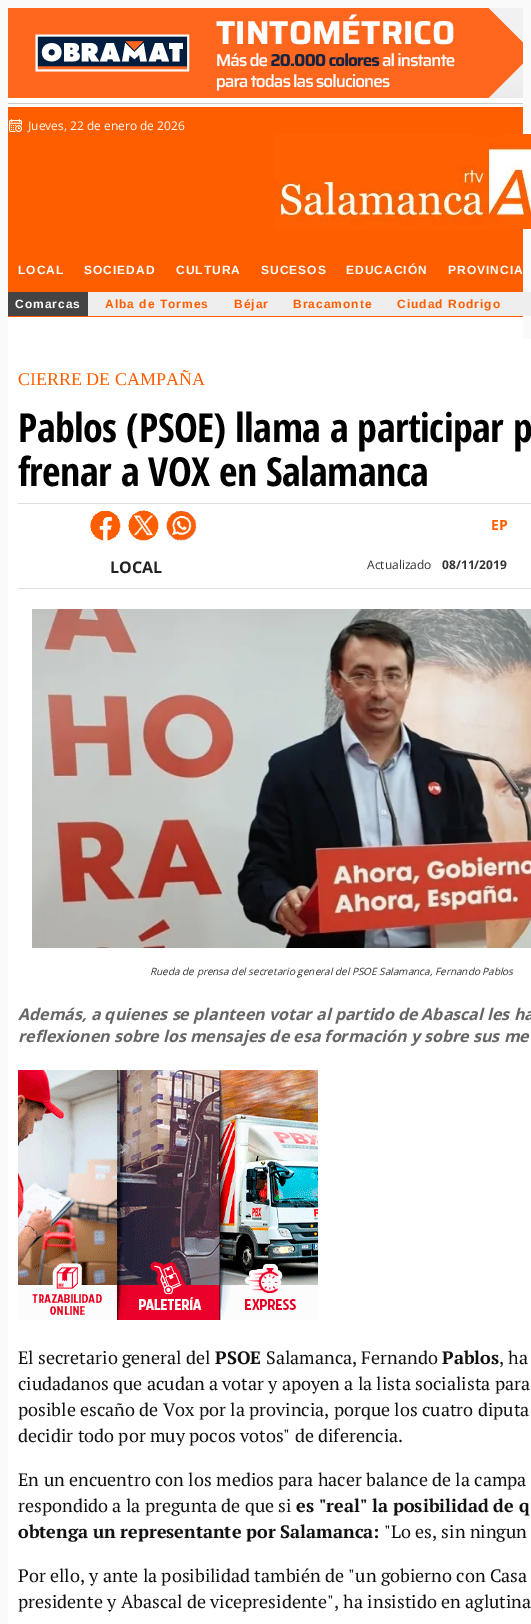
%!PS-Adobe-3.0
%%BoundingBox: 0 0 531 1624
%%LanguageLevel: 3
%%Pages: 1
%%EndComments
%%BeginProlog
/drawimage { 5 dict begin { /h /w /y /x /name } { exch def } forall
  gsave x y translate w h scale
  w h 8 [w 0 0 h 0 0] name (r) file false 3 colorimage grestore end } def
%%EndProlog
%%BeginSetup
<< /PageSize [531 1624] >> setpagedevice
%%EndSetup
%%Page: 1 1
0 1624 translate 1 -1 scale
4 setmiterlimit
0.98 setgray
0 0 531 1624 rectfill
1 setgray
8 98 515 241 rectfill
0.8 setgray
8 103 515 1 rectfill
(images/1.raw) 8 8 515 90 drawimage
1 0.369 0 setrgbcolor
8 107 515 210 rectfill
(images/2.raw) 9 119 13 13 drawimage
(images/3.raw) 274 134 257 95 drawimage
0.933 setgray
88 292 443 24 rectfill
0.267 setgray
8 292 80 24 rectfill
1 setgray
8 339 523 1285 rectfill
0.871 setgray
18 503 513 1 rectfill
18 588 513 1 rectfill
(images/4.raw) 90 511 31 30 drawimage
(images/5.raw) 128 510 31 31 drawimage
(images/6.raw) 166 511 31 30 drawimage
(images/7.raw) 32 609 499 339 drawimage
(images/8.raw) 18 1070 300 250 drawimage
/OpenSans-Regular [12 0 0 -12 0 0] selectfont
1 setgray
28 130 moveto (Jueves, 22 de enero de 2026) show
/LiberationSans-Bold [12 0 0 -12 0 0] selectfont
18 274 moveto 1 0 (LOCAL) ashow
84 274 moveto 1 0 (SOCIEDAD) ashow
176 274 moveto 1 0 (CULTURA) ashow
261 274 moveto 1 0 (SUCESOS) ashow
346 274 moveto 1 0 (EDUCACIÓN) ashow
448 274 moveto 1 0 (PROVINCIA) ashow
15 308 moveto 1 0 (Comarcas) ashow
1 0.369 0 setrgbcolor
105 308 moveto 1 0 (Alba de Tormes) ashow
234 308 moveto 1 0 (Béjar) ashow
293 308 moveto 1 0 (Bracamonte) ashow
397 308 moveto 1 0 (Ciudad Rodrigo) ashow
/LiberationSerif-Regular [18 0 0 -18 0 0] selectfont
18 385 moveto (CIERRE DE CAMPAÑA) show
/OpenSansCondensed-Bold [40 0 0 -40 0 0] selectfont
0 setgray
18 442 moveto -0.5 0 (Pablos \(PSOE\) llama a participar p) ashow
18 486 moveto -0.5 0 (frenar a VOX en Salamanca) ashow
/OpenSans-Bold [14 0 0 -14 0 0] selectfont
1 0.369 0 setrgbcolor
491 530 moveto (EP) show
/OpenSans-Bold [16 0 0 -16 0 0] selectfont
0.133 setgray
110 573 moveto (LOCAL) show
/OpenSans-Regular [12 0 0 -12 0 0] selectfont
0.2 setgray
367 569 moveto (Actualizado) show
/OpenSans-Bold [12 0 0 -12 0 0] selectfont
442 569 moveto (08/11/2019) show
/OpenSans-Italic [10 0 0 -10 0 0] selectfont
150 975 moveto (Rueda de prensa del secretario general del PSOE Salamanca, Fernando Pablos) show
/OpenSans-BoldItalic [16 0 0 -16 0 0] selectfont
0.4 setgray
18 1020 moveto (Además, a quienes se planteen votar al partido de Abascal les ha) show
18 1042 moveto (reflexionen sobre los mensajes de esa formación y sobre sus me) show
/PTSerif-Regular [18 0 0 -18 0 0] selectfont
0.071 setgray
18 1364 moveto (El secretario general del) show
/PTSerif-Bold [18 0 0 -18 0 0] selectfont
215 1364 moveto (PSOE) show
/PTSerif-Regular [18 0 0 -18 0 0] selectfont
266 1364 moveto (Salamanca, Fernando) show
/PTSerif-Bold [18 0 0 -18 0 0] selectfont
442 1364 moveto (Pablos) show
/PTSerif-Regular [18 0 0 -18 0 0] selectfont
499 1364 moveto (, ha) show
18 1390 moveto (ciudadanos que acudan a votar y apoyen a la lista socialista para) show
18 1416 moveto (posible escaño de Vox por la provincia, porque los cuatro diputa) show
18 1442 moveto (decidir todo por muy pocos votos" de diferencia.) show
18 1486 moveto (En un encuentro con los medios para hacer balance de la campa) show
18 1512 moveto (respondido a la pregunta de que si) show
/PTSerif-Bold [18 0 0 -18 0 0] selectfont
296 1512 moveto (es "real" la posibilidad de q) show
18 1538 moveto (obtenga un representante por Salamanca:) show
/PTSerif-Regular [18 0 0 -18 0 0] selectfont
384 1538 moveto ("Lo es, sin ningun) show
18 1582 moveto (Por ello, y ante la posibilidad también de "un gobierno con Casa) show
18 1608 moveto (presidente y Abascal de vicepresidente", ha insistido en aglutina) show
showpage
%%EOF
